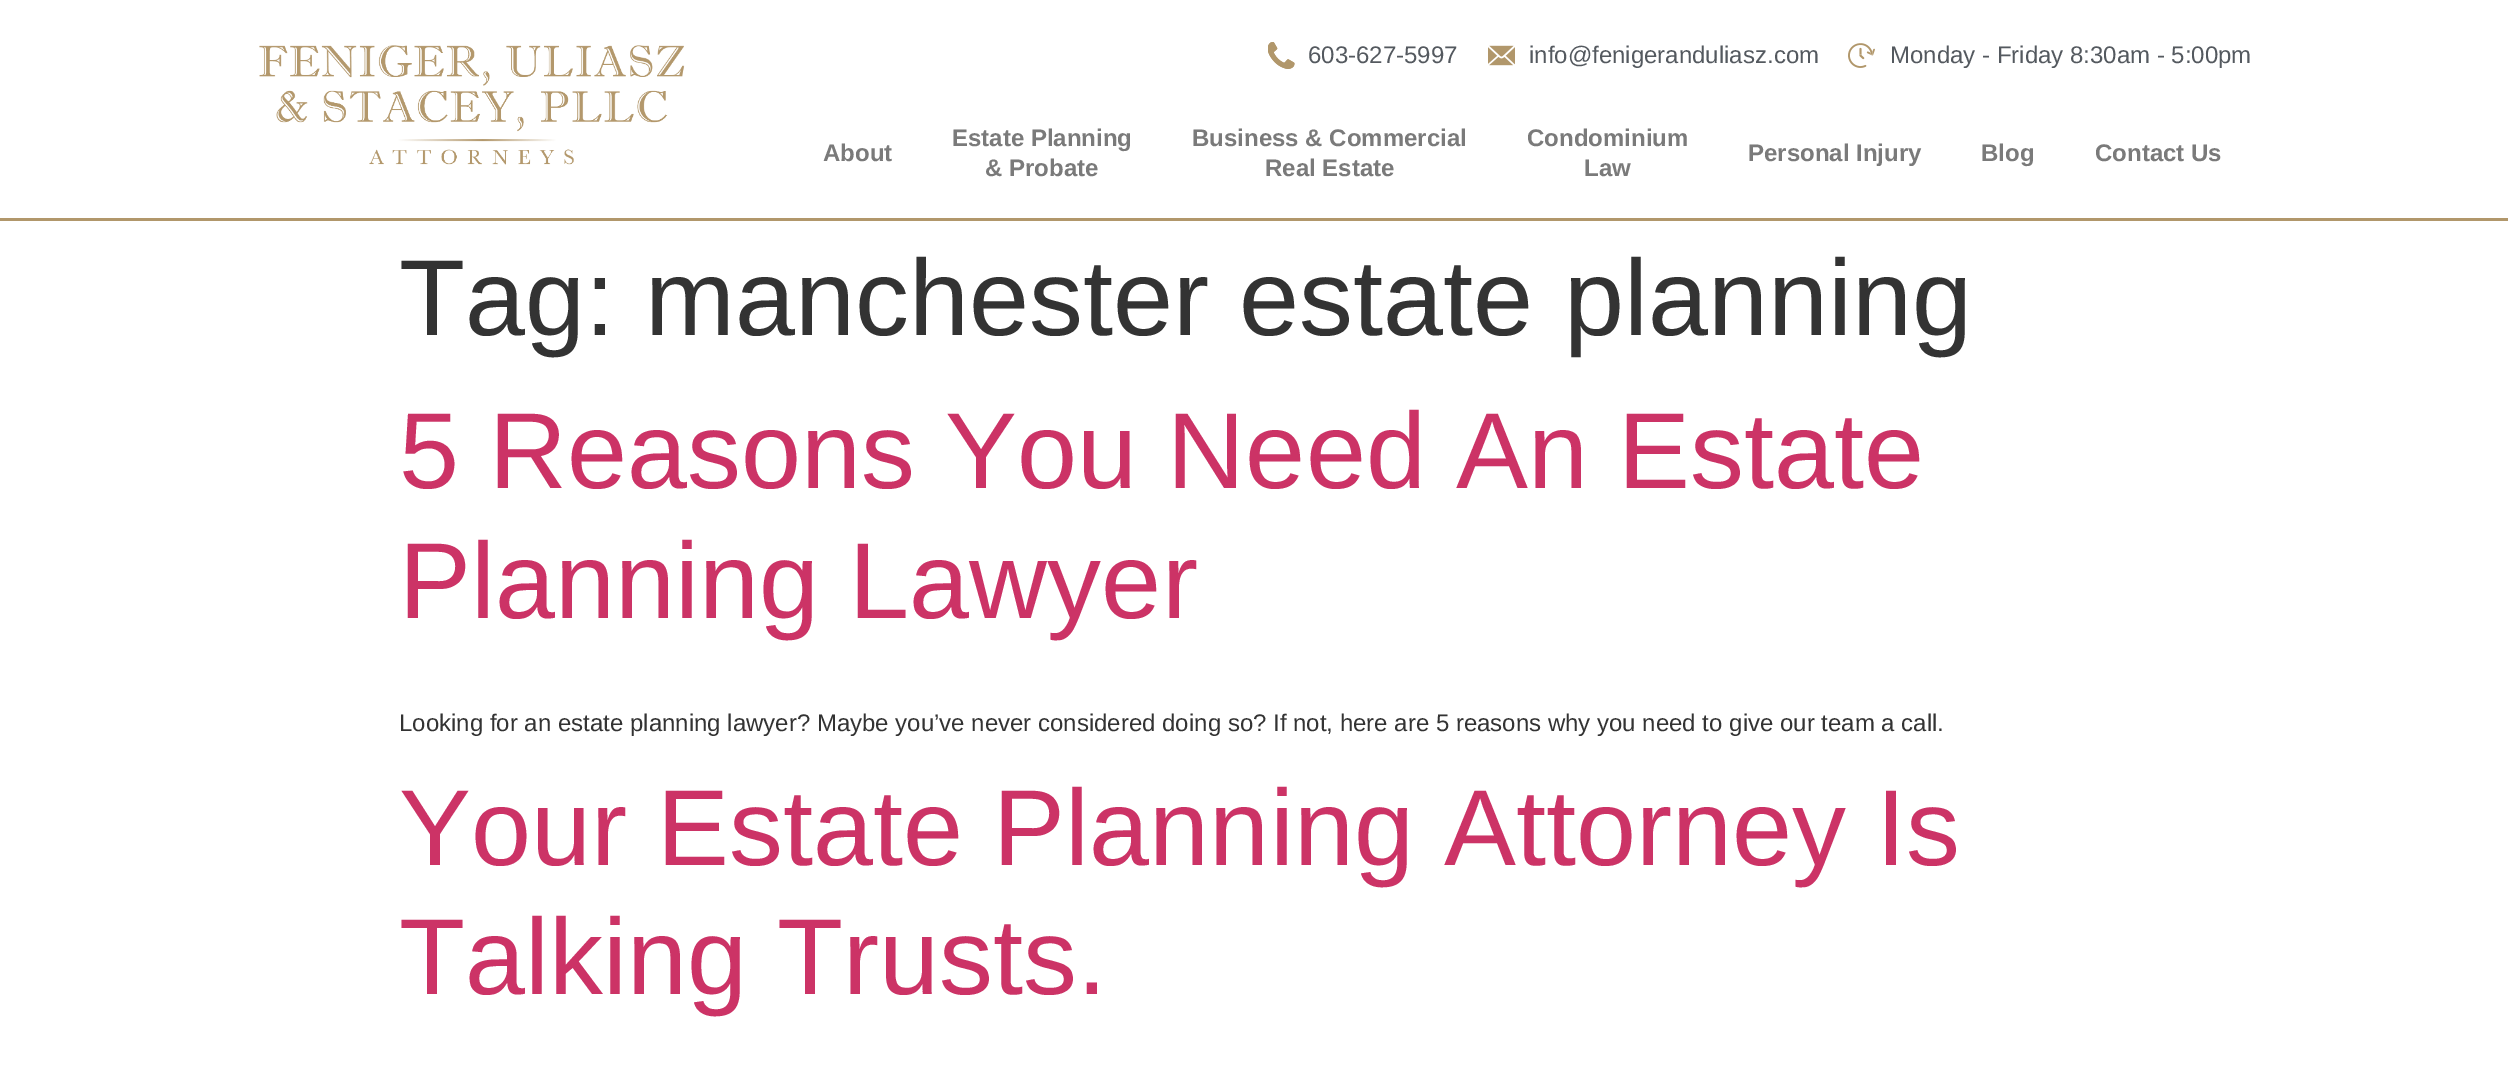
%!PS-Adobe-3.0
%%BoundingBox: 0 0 2508 1073
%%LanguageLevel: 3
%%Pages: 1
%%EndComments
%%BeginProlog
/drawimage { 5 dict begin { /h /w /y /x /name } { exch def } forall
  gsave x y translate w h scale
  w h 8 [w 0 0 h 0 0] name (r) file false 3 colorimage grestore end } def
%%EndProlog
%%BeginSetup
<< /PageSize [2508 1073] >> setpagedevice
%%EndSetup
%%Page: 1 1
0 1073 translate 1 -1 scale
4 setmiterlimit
1 setgray
0 0 2508 1073 rectfill
0.694 0.592 0.42 setrgbcolor
0 218 2508 3 rectfill
(images/1.raw) 259 45 426 120 drawimage
(images/2.raw) 1268 42 27 27 drawimage
(images/3.raw) 1488 45 27 21 drawimage
(images/4.raw) 1848 43 27 25 drawimage
/LiberationSans-Regular [24 0 0 -24 0 0] selectfont
0.329 0.349 0.373 setrgbcolor
1308 63 moveto (603-627-5997) show
1529 63 moveto (info@fenigeranduliasz.com) show
1890 63 moveto (Monday - Friday 8:30am - 5:00pm) show
/LiberationSans-Bold [24 0 0 -24 0 0] selectfont
0.478 setgray
823 161 moveto (About) show
952 146 moveto (Estate Planning) show
985 176 moveto (& Probate) show
1192 146 moveto (Business & Commercial) show
1265 176 moveto (Real Estate) show
1527 146 moveto (Condominium) show
1584 176 moveto (Law) show
1748 161 moveto (Personal Injury) show
1981 161 moveto (Blog) show
2095 161 moveto (Contact Us) show
/LiberationSans-Regular [108 0 0 -108 0 0] selectfont
0.2 setgray
399 335 moveto (Tag: manchester estate planning) show
0.8 0.2 0.4 setrgbcolor
399 488 moveto (5 Reasons You Need An Estate) show
399 618 moveto (Planning Lawyer) show
/LiberationSans-Regular [24 0 0 -24 0 0] selectfont
0.2 setgray
399 731 moveto (Looking for an estate planning lawyer? Maybe you’ve never considered doing so? If not, here are 5 reasons why you need to give our team a call.) show
/LiberationSans-Regular [108 0 0 -108 0 0] selectfont
0.8 0.2 0.4 setrgbcolor
399 865 moveto (Your Estate Planning Attorney Is) show
399 994 moveto (Talking Trusts.) show
showpage
%%EOF
